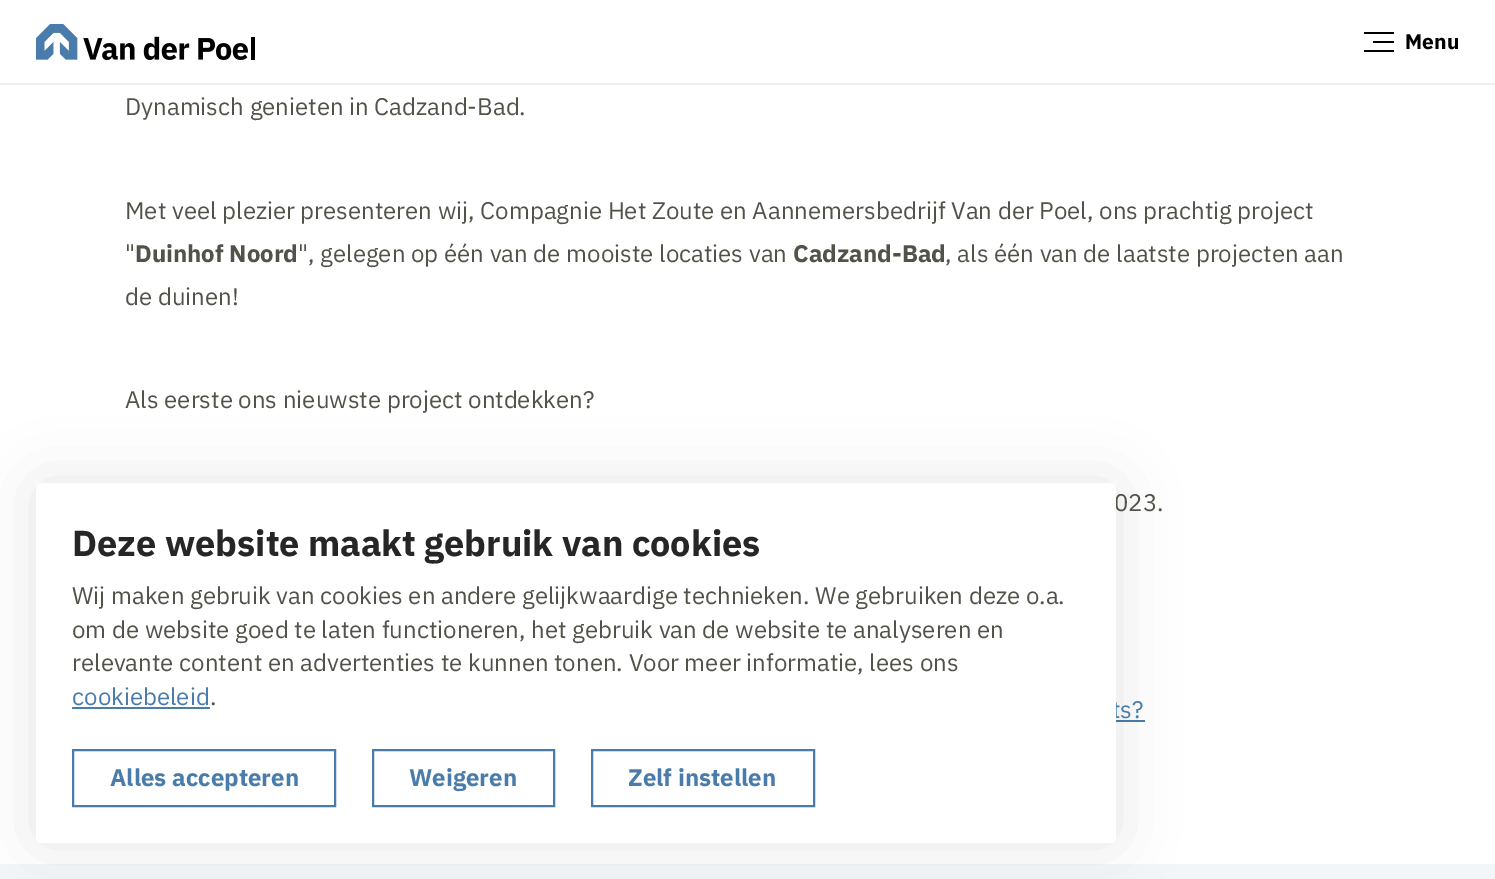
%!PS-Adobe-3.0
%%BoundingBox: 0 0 1495 879
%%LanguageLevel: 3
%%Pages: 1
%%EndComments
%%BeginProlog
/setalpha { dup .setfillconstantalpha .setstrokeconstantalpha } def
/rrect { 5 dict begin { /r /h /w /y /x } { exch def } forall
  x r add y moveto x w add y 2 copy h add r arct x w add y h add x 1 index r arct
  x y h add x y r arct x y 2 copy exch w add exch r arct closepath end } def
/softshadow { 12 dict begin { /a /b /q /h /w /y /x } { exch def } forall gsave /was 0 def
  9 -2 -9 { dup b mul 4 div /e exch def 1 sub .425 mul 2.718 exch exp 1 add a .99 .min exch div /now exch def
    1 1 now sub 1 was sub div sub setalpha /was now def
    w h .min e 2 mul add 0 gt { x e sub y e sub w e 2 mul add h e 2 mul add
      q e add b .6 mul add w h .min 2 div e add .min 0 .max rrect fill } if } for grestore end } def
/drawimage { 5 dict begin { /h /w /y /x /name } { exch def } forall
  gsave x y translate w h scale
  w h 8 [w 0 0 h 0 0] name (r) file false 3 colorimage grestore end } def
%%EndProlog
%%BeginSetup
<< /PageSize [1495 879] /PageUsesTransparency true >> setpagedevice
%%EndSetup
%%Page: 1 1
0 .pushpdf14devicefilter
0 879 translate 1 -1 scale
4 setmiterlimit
1 setgray
0 0 1495 879 rectfill
0.937 setgray
0 83 1495 2 rectfill
(images/1.raw) 36 24 219 36 drawimage
0 setgray
1364 32 30 2 rectfill
1373 41 21 2 rectfill
1364 50 30 2 rectfill
0.286 0.486 0.671 setrgbcolor
1116 720 29 2 rectfill
0.949 0.965 0.976 setrgbcolor
0 864 1495 15 rectfill
0 setgray
36 483 1080 360 6 30 0.1 softshadow
/IBMPlexSans-Bold [21 0 0 -21 0 0] selectfont
1405 49 moveto (Menu) show
/IBMPlexSans-Regular [24 0 0 -24 0 0] selectfont
0.318 0.325 0.29 setrgbcolor
125 115 moveto (Dynamisch genieten in Cadzand-Bad.) show
125 219 moveto (Met veel plezier presenteren wij, Compagnie Het Zoute en Aannemersbedrijf Van der Poel, ons prachtig project) show
125 262 moveto (") show
/IBMPlexSans-Bold [24 0 0 -24 0 0] selectfont
135 262 moveto (Duinhof Noord) show
/IBMPlexSans-Regular [24 0 0 -24 0 0] selectfont
298 262 moveto (", gelegen op één van de mooiste locaties van) show
/IBMPlexSans-Bold [24 0 0 -24 0 0] selectfont
793 262 moveto (Cadzand-Bad) show
/IBMPlexSans-Regular [24 0 0 -24 0 0] selectfont
945 262 moveto (, als één van de laatste projecten aan) show
125 305 moveto (de duinen!) show
125 408 moveto (Als eerste ons nieuwste project ontdekken?) show
1114 511 moveto (023.) show
0.286 0.486 0.671 setrgbcolor
1112 718 moveto (ts?) show
1 setgray
36 483 1080 360 6 rrect fill
/IBMPlexSans-Bold [36 0 0 -36 0 0] selectfont
0.149 setgray
72 556 moveto (Deze website maakt gebruik van cookies) show
/IBMPlexSans-Regular [24 0 0 -24 0 0] selectfont
0.318 0.325 0.29 setrgbcolor
72 604 moveto (Wij maken gebruik van cookies en andere gelijkwaardige technieken. We gebruiken deze o.a.) show
72 638 moveto (om de website goed te laten functioneren, het gebruik van de website te analyseren en) show
72 671 moveto (relevante content en advertenties te kunnen tonen. Voor meer informatie, lees ons) show
0.286 0.486 0.671 setrgbcolor
72 705 moveto (cookiebeleid) show
72 707 138 2 rectfill
0.318 0.325 0.29 setrgbcolor
210 705 moveto (.) show
0.286 0.486 0.671 setrgbcolor
2 setlinewidth
73 750 262 56 rectstroke
/IBMPlexSans-Bold [24 0 0 -24 0 0] selectfont
110 786 moveto (Alles accepteren) show
373 750 181 56 rectstroke
409 786 moveto (Weigeren) show
592 750 222 56 rectstroke
628 786 moveto (Zelf instellen) show
.poppdf14devicefilter showpage
%%EOF
